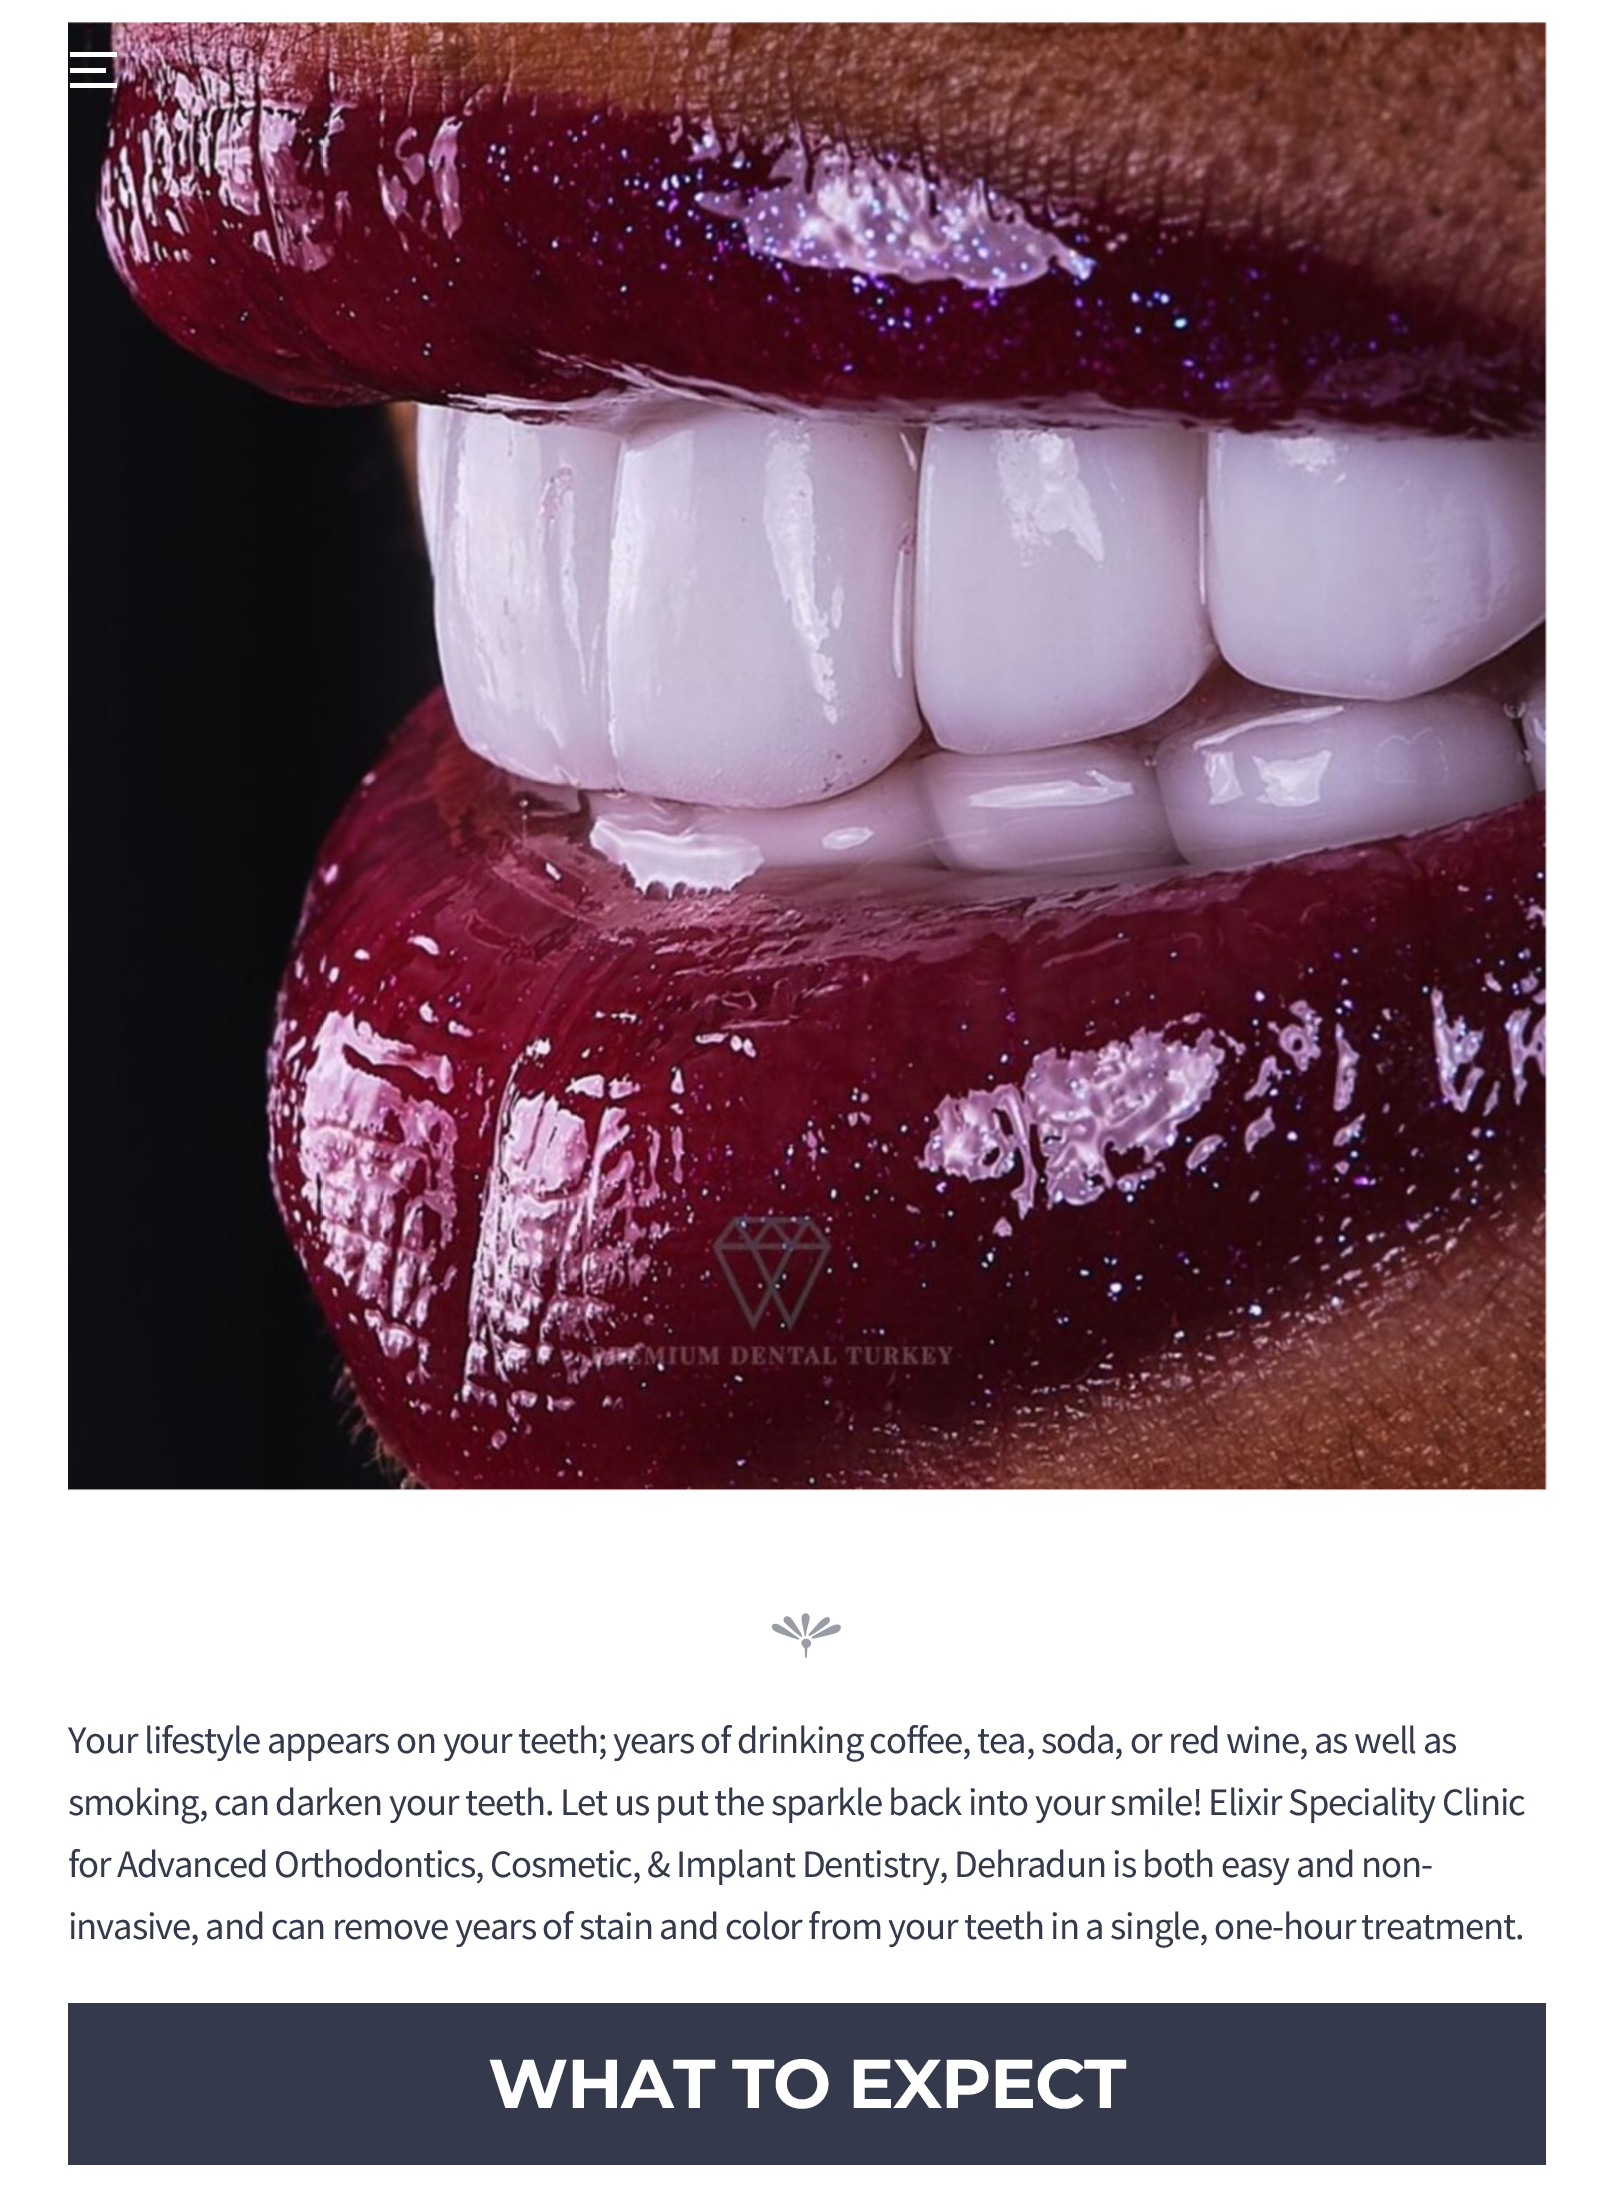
%!PS-Adobe-3.0
%%BoundingBox: 0 0 1612 2212
%%LanguageLevel: 3
%%Pages: 1
%%EndComments
%%BeginProlog
/drawimage { 5 dict begin { /h /w /y /x /name } { exch def } forall
  gsave x y translate w h scale
  w h 8 [w 0 0 h 0 0] name (r) file false 3 colorimage grestore end } def
%%EndProlog
%%BeginSetup
<< /PageSize [1612 2212] >> setpagedevice
%%EndSetup
%%Page: 1 1
0 2212 translate 1 -1 scale
4 setmiterlimit
1 setgray
0 0 1612 2212 rectfill
(images/1.raw) 68 22 1479 1469 drawimage
70 52 47 5 rectfill
70 68 36 5 rectfill
70 83 47 5 rectfill
(images/2.raw) 772 1613 69 45 drawimage
0.204 0.224 0.294 setrgbcolor
68 2003 1478 162 rectfill
/SourceSansPro-Regular [38.75 0 0 -38.75 0 0] selectfont
68 1753 moveto -1.16 0 (Your lifestyle appears on your teeth; years of drinking coffee, tea, soda, or red wine, as well as) ashow
68 1815 moveto -1.16 0 (smoking, can darken your teeth. Let us put the sparkle back into your smile! Elixir Speciality Clinic) ashow
68 1877 moveto -1.16 0 (for Advanced Orthodontics, Cosmetic, & Implant Dentistry, Dehradun is both easy and non-) ashow
68 1939 moveto -1.16 0 (invasive, and can remove years of stain and color from your teeth in a single, one-hour treatment.) ashow
/Montserrat-Thin [69 0 0 -69 0 0] selectfont
1 setgray
488 2108 moveto -1.4 0 (WHAT TO EXPECT) ashow
showpage
%%EOF
